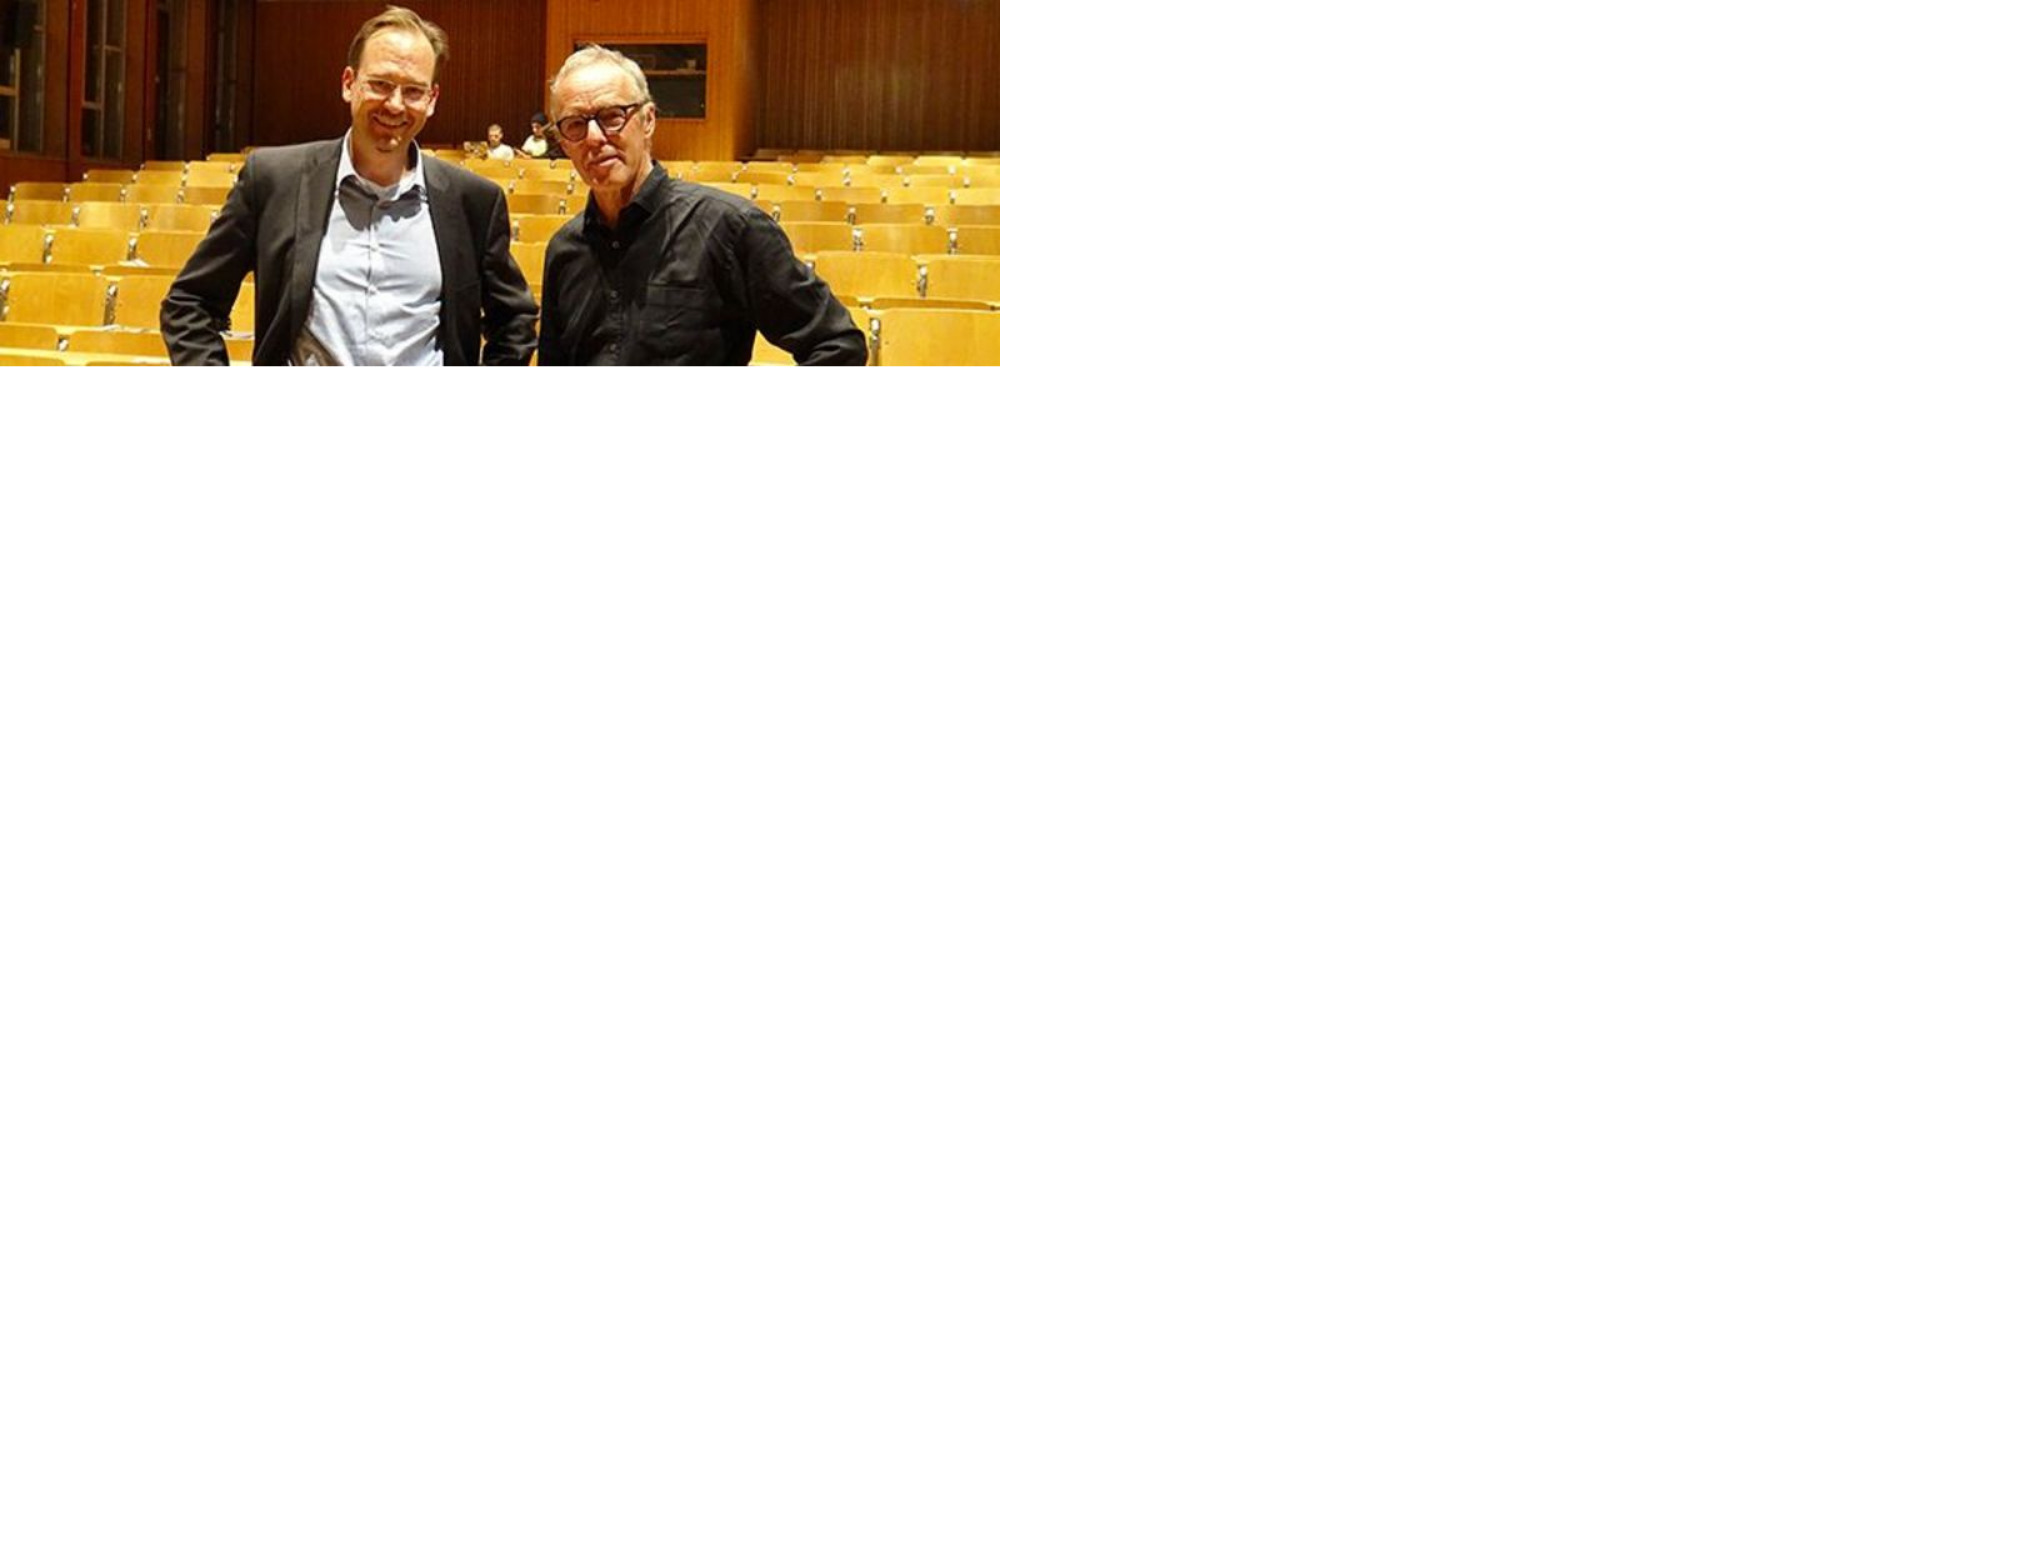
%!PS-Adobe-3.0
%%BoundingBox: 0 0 2040 1550
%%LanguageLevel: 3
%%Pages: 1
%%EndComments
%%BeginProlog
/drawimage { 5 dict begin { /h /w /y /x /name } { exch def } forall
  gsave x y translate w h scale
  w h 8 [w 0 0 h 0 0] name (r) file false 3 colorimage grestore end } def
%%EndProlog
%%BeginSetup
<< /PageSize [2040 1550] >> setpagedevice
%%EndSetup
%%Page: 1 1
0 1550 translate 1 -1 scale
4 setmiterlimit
1 setgray
0 0 2040 1550 rectfill
(images/1.raw) 0 0 1000 367 drawimage
showpage
%%EOF
